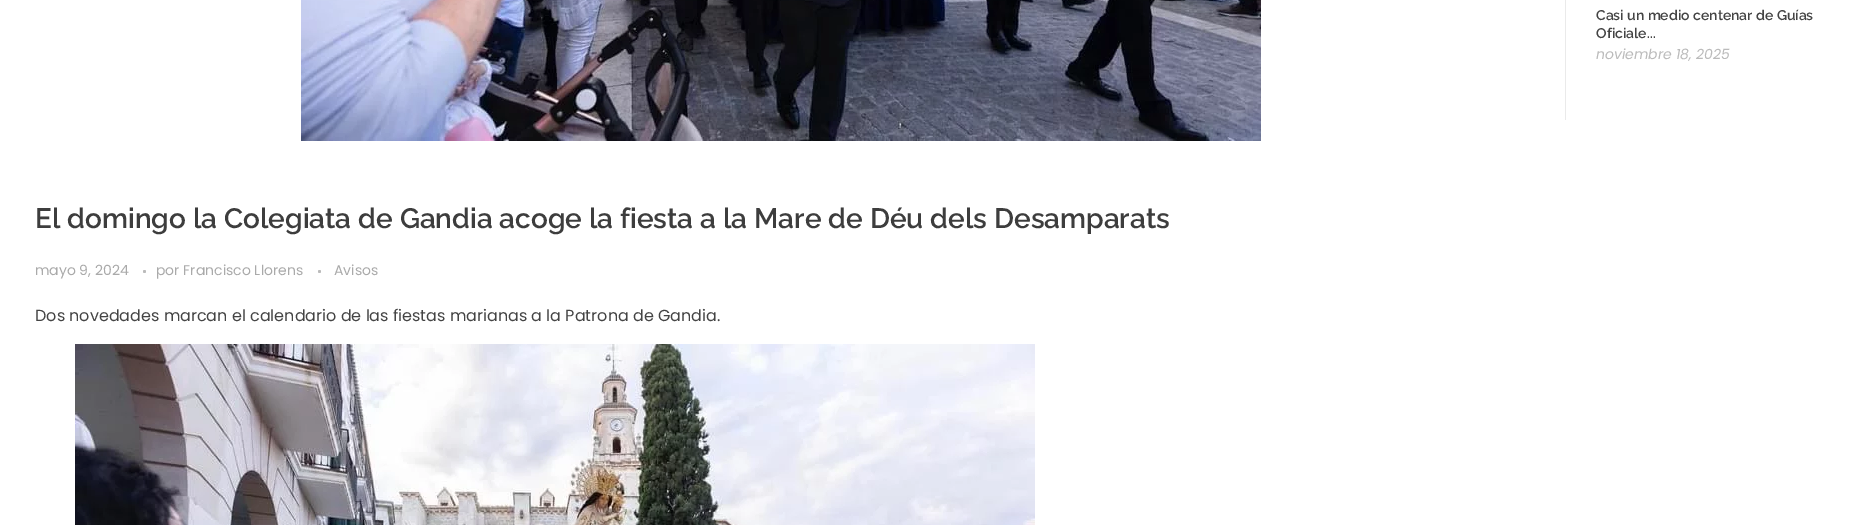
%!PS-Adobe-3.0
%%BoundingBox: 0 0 1865 525
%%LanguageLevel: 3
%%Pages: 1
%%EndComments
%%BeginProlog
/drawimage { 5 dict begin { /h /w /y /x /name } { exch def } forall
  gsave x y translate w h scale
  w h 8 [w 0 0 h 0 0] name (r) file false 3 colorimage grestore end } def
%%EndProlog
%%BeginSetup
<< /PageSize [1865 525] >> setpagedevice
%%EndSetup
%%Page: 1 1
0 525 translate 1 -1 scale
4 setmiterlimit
1 setgray
0 0 1865 525 rectfill
0.918 setgray
1565 0 1 120 rectfill
(images/1.raw) 301 0 960 141 drawimage
0.733 setgray
newpath 144.5 271.5 1.5 0 360 arc closepath fill
newpath 319.5 271.5 1.5 0 360 arc closepath fill
(images/2.raw) 75 344 960 181 drawimage
/Raleway-SemiBold [14 0 0 -14 0 0] selectfont
0.267 setgray
1596 20 moveto (Casi un medio centenar de Guías) show
1596 38 moveto (Oficiale...) show
/Poppins-Italic [14 0 0 -14 0 0] selectfont
0.733 setgray
1596 59 moveto (noviembre 18, 2025) show
/Raleway-SemiBold [28 0 0 -28 0 0] selectfont
0.239 setgray
35 228 moveto (El domingo la Colegiata de Gandia acoge la fiesta a la Mare de Déu dels Desamparats) show
/Poppins-Regular [14 0 0 -14 0 0] selectfont
0.667 setgray
35 275 moveto (mayo 9, 2024) show
156 275 moveto (por Francisco Llorens) show
334 275 moveto (Avisos) show
/Poppins-Regular [16 0 0 -16 0 0] selectfont
0.267 setgray
35 321 moveto (Dos novedades marcan el calendario de las fiestas marianas a la Patrona de Gandia.) show
showpage
%%EOF
